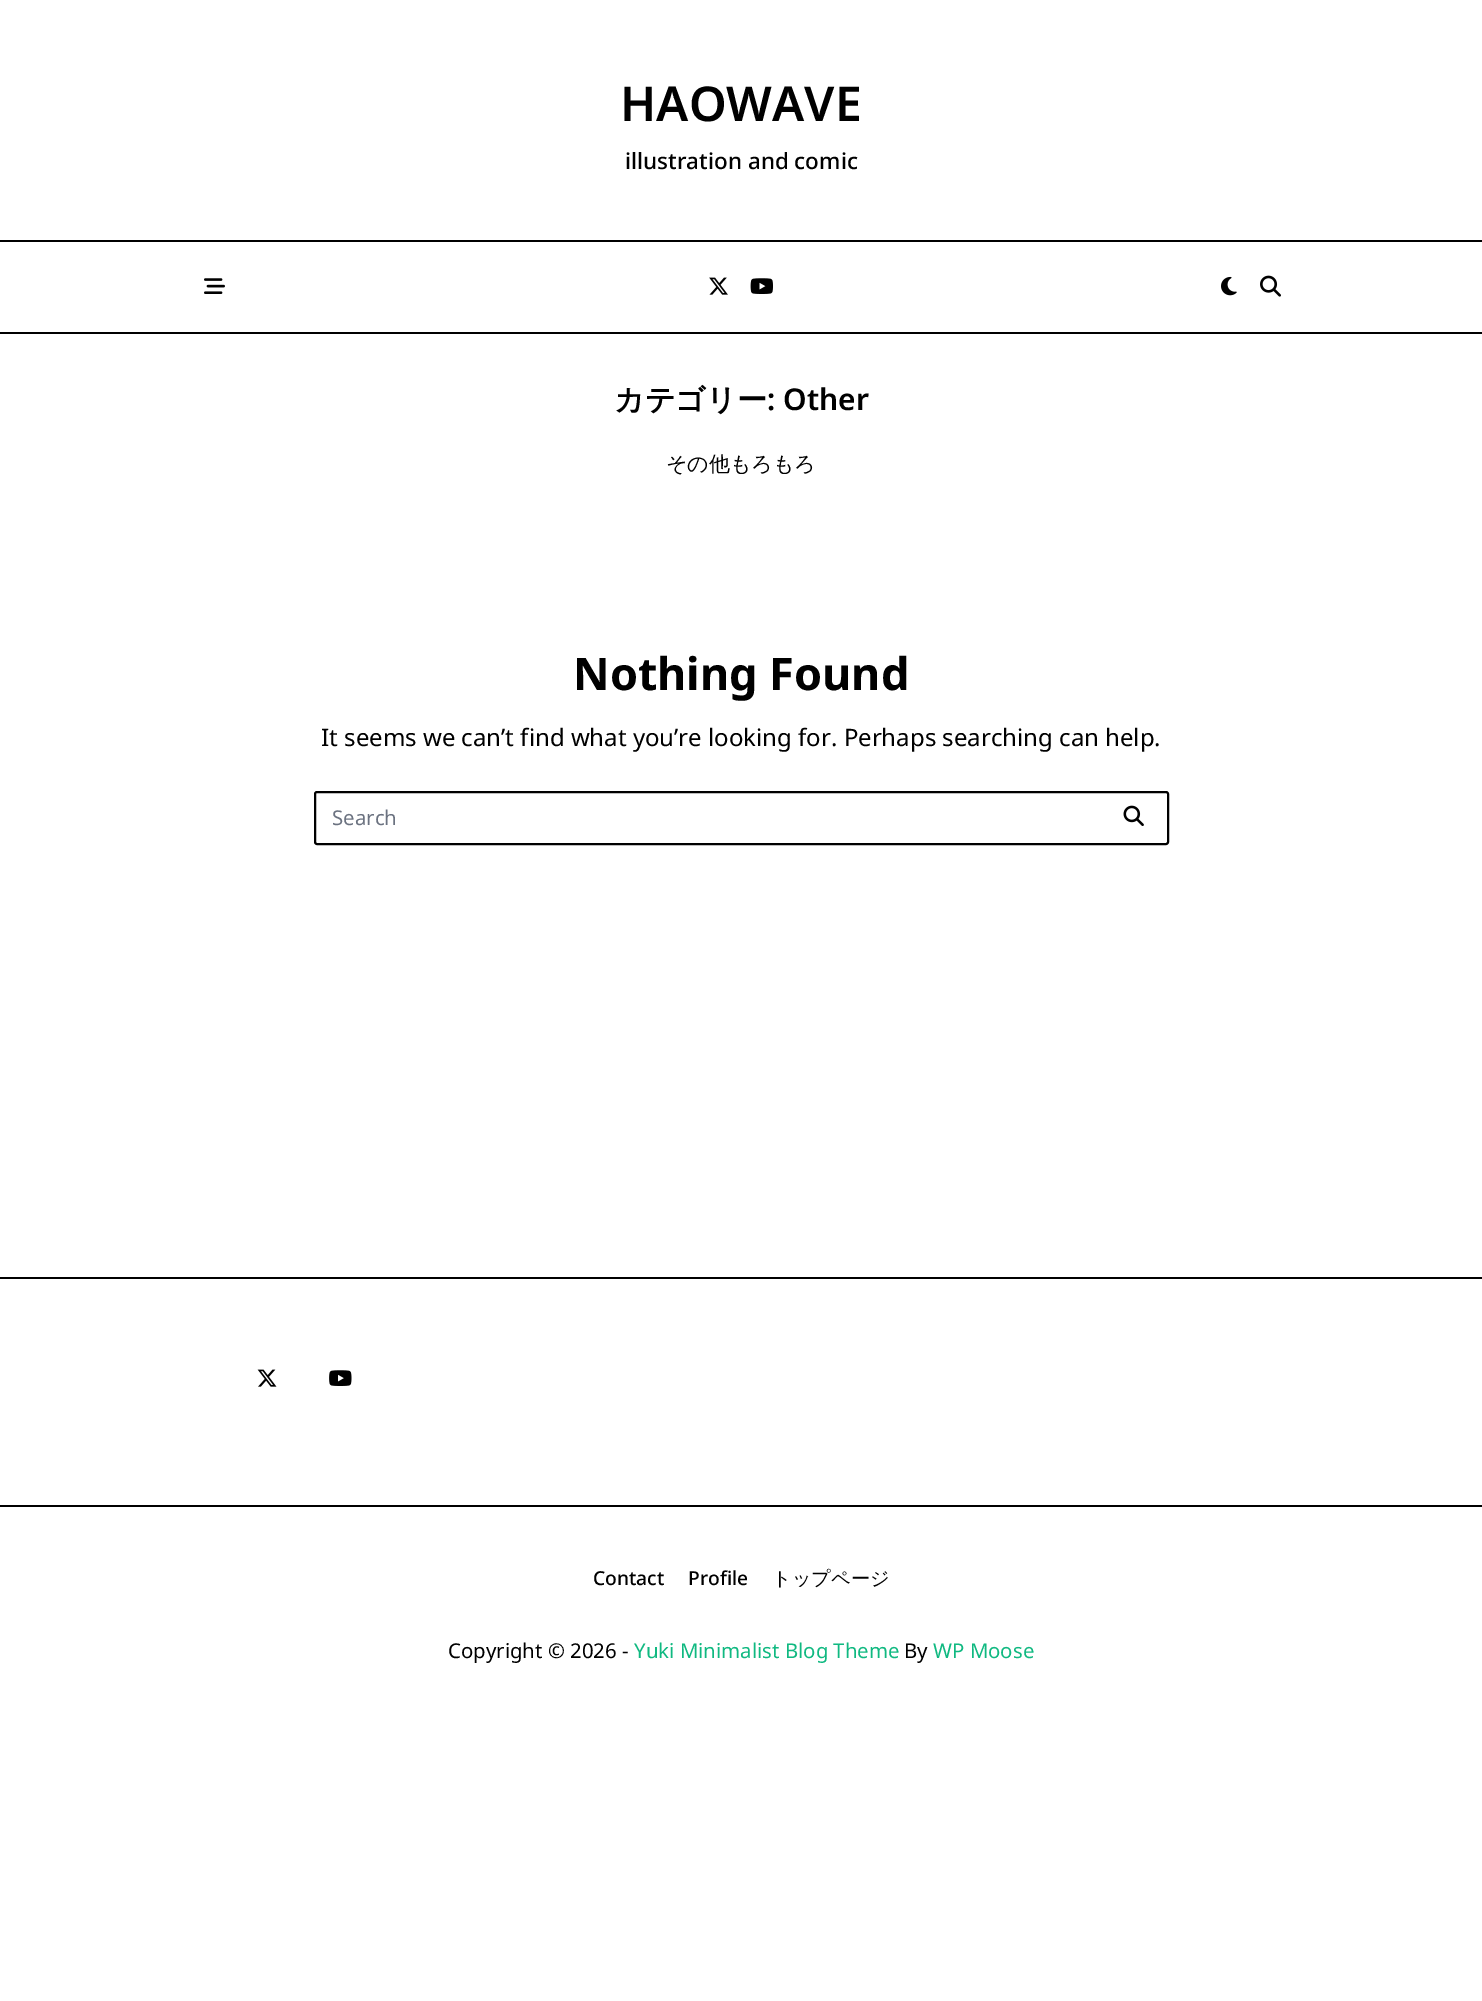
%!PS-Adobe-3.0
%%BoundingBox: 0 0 1482 2001
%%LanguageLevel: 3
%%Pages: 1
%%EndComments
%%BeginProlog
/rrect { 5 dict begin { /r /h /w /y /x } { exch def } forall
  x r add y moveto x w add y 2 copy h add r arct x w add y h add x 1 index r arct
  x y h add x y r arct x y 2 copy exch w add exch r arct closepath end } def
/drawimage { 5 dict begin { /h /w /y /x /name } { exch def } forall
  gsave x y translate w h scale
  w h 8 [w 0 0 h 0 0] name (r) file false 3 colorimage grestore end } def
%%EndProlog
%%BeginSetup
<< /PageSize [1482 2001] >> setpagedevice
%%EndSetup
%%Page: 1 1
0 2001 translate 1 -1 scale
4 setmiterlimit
1 setgray
0 0 1482 2001 rectfill
0 setgray
0 240 1482 2 rectfill
0 332 1482 2 rectfill
(images/1.raw) 204 278 21 16 drawimage
(images/2.raw) 709 277 19 18 drawimage
(images/3.raw) 750 278 23 16 drawimage
(images/4.raw) 1221 276 16 20 drawimage
(images/5.raw) 1260 275 21 22 drawimage
2 setlinewidth
315 792 853 52 2 rrect stroke
(images/6.raw) 1123 805 21 21 drawimage
0 1277 1482 2 rectfill
(images/7.raw) 257 1369 20 18 drawimage
(images/8.raw) 329 1370 23 16 drawimage
0 1505 1482 2 rectfill
/NotoSans-SemiBold [48 0 0 -48 0 0] selectfont
620 121 moveto (HAOWAVE) show
/NotoSans-Medium [22.5 0 0 -22.5 0 0] selectfont
625 169 moveto (illustration and comic) show
/WenQuanYiZenHei-Bold [30 0 0 -30 0 0] selectfont
614 410 moveto (カテゴリー) show
/NotoSans-SemiBold [30 0 0 -30 0 0] selectfont
767 410 moveto (: Other) show
/WenQuanYiZenHei-Medium [21 0 0 -21 0 0] selectfont
666 471 moveto (その他もろもろ) show
/NotoSans-Bold [45 0 0 -45 0 0] selectfont
573 690 moveto (Nothing Found) show
/NotoSans-Regular [24 0 0 -24 0 0] selectfont
321 746 moveto (It seems we can’t find what you’re looking for. Perhaps searching can help.) show
/NotoSans-Regular [20.4 0 0 -20.4 0 0] selectfont
0.42 0.447 0.502 setrgbcolor
332 825 moveto (Search) show
/NotoSans-Medium [19.25 0 0 -19.25 0 0] selectfont
0 setgray
593 1585 moveto (Contact) show
688 1585 moveto (Profile) show
/WenQuanYiZenHei-Medium [19.25 0 0 -19.25 0 0] selectfont
772 1585 moveto (トップページ) show
/NotoSans-Regular [20.4 0 0 -20.4 0 0] selectfont
448 1658 moveto (Copyright © 2026 -) show
0.063 0.725 0.506 setrgbcolor
634 1658 moveto (Yuki Minimalist Blog Theme) show
0 setgray
904 1658 moveto (By) show
0.063 0.725 0.506 setrgbcolor
933 1658 moveto (WP Moose) show
showpage
%%EOF
